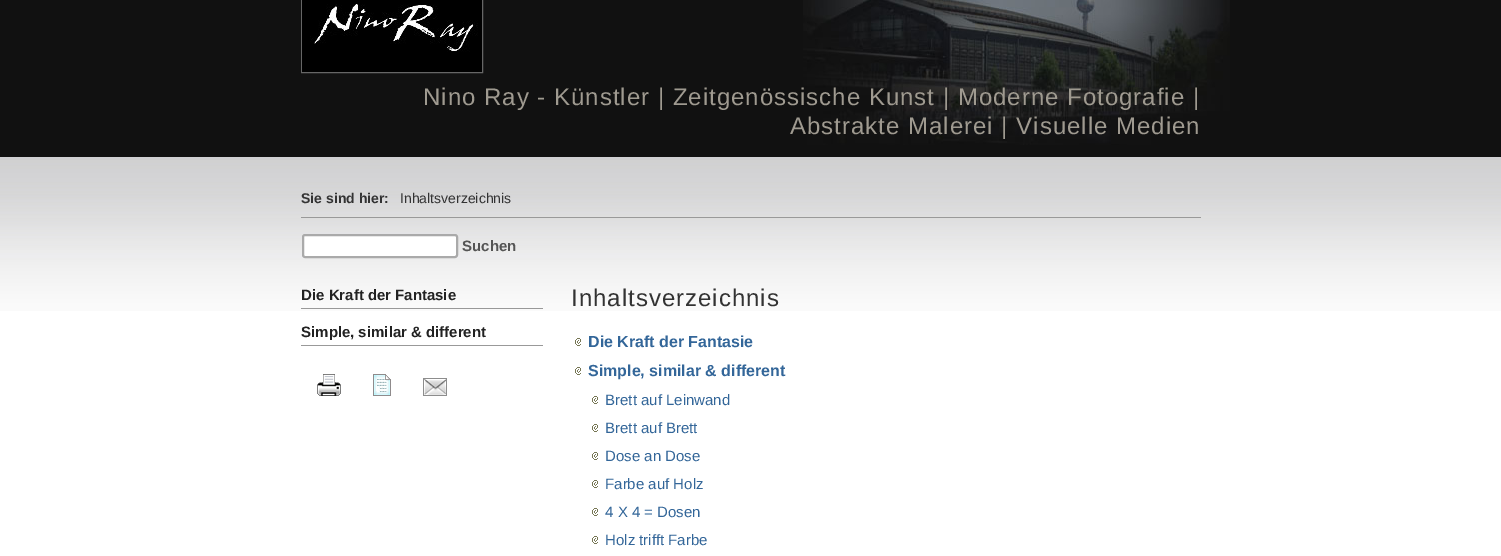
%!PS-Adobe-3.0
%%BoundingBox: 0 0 1501 556
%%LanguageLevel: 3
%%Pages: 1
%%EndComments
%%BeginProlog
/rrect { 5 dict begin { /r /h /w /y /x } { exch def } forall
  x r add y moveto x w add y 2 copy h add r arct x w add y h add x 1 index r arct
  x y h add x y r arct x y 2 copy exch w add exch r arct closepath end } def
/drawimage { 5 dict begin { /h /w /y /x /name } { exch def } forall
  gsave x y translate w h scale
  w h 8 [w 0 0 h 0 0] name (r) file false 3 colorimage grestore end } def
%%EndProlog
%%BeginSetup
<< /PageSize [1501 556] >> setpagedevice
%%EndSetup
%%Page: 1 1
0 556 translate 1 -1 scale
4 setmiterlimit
0.067 setgray
0 0 1501 556 rectfill
(images/1.raw) 803 0 427 145 drawimage
0.4 setgray
301.5 -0.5 181 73 rectstroke
(images/2.raw) 302 0 180 72 drawimage
1 setgray
0 311 1501 245 rectfill
(images/3.raw) 0 157 1501 154 drawimage
0.6 setgray
301 217 900 1 rectfill
1 setgray
303 235 154 22 2 rrect gsave fill grestore
0.667 setgray
2 setlinewidth
stroke
0.6 setgray
301 308 242 1 rectfill
301 345 242 1 rectfill
(images/4.raw) 317 374 24 22 drawimage
(images/5.raw) 373 374 18 22 drawimage
(images/6.raw) 423 378 24 18 drawimage
(images/7.raw) 575 338 6 8 drawimage
(images/7.raw) 575 367 6 8 drawimage
(images/7.raw) 592 396 6 8 drawimage
(images/7.raw) 592 424 6 8 drawimage
(images/7.raw) 592 452 6 8 drawimage
(images/7.raw) 592 480 6 8 drawimage
(images/7.raw) 592 508 6 8 drawimage
(images/7.raw) 592 536 6 8 drawimage
/LiberationSans-Regular [24 0 0 -24 0 0] selectfont
0.624 0.604 0.565 setrgbcolor
423 105 moveto 1 0 (Nino Ray - Künstler | Zeitgenössische Kunst | Moderne Fotografie |) ashow
790 134 moveto 1 0 (Abstrakte Malerei | Visuelle Medien) ashow
/LiberationSans-Bold [14 0 0 -14 0 0] selectfont
0.2 setgray
301 203 moveto (Sie sind hier:) show
/LiberationSans-Regular [14 0 0 -14 0 0] selectfont
400 203 moveto (Inhaltsverzeichnis) show
/LiberationSans-Bold [15 0 0 -15 0 0] selectfont
0.333 setgray
462 251 moveto (Suchen) show
0.133 setgray
301 300 moveto (Die Kraft der Fantasie) show
301 337 moveto (Simple, similar & different) show
/LiberationSans-Regular [24 0 0 -24 0 0] selectfont
0.2 setgray
571 306 moveto 1 0 (Inhaltsverzeichnis) ashow
/LiberationSans-Bold [16 0 0 -16 0 0] selectfont
0.2 0.4 0.6 setrgbcolor
588 347 moveto (Die Kraft der Fantasie) show
588 376 moveto (Simple, similar & different) show
/LiberationSans-Regular [15 0 0 -15 0 0] selectfont
605 405 moveto (Brett auf Leinwand) show
605 433 moveto (Brett auf Brett) show
605 461 moveto (Dose an Dose) show
605 489 moveto (Farbe auf Holz) show
605 517 moveto (4 X 4 = Dosen) show
605 545 moveto (Holz trifft Farbe) show
showpage
%%EOF
